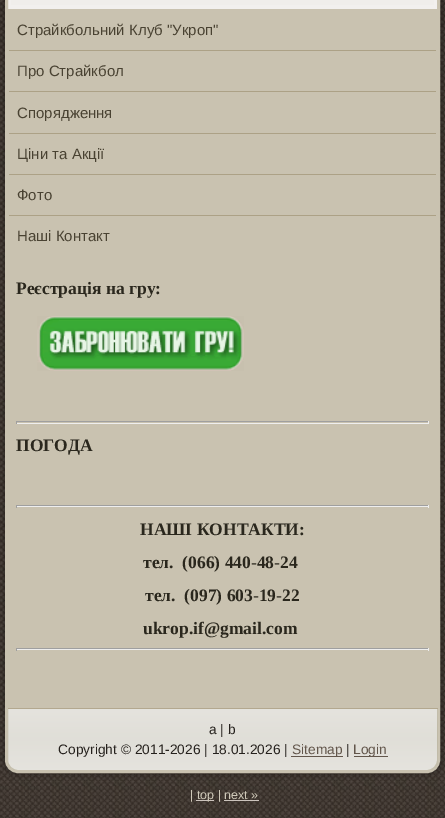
%!PS-Adobe-3.0
%%BoundingBox: 0 0 445 818
%%LanguageLevel: 3
%%Pages: 1
%%EndComments
%%BeginProlog
/setalpha { dup .setfillconstantalpha .setstrokeconstantalpha } def
/rrect { 5 dict begin { /r /h /w /y /x } { exch def } forall
  x r add y moveto x w add y 2 copy h add r arct x w add y h add x 1 index r arct
  x y h add x y r arct x y 2 copy exch w add exch r arct closepath end } def
/softshadow { 12 dict begin { /a /b /q /h /w /y /x } { exch def } forall gsave /was 0 def
  9 -2 -9 { dup b mul 4 div /e exch def 1 sub .425 mul 2.718 exch exp 1 add a .99 .min exch div /now exch def
    1 1 now sub 1 was sub div sub setalpha /was now def
    w h .min e 2 mul add 0 gt { x e sub y e sub w e 2 mul add h e 2 mul add
      q e add b .6 mul add w h .min 2 div e add .min 0 .max rrect fill } if } for grestore end } def
/drawimage { 5 dict begin { /h /w /y /x /name } { exch def } forall
  gsave x y translate w h scale
  w h 8 [w 0 0 h 0 0] name (r) file false 3 colorimage grestore end } def
%%EndProlog
%%BeginSetup
<< /PageSize [445 818] /PageUsesTransparency true >> setpagedevice
%%EndSetup
%%Page: 1 1
0 .pushpdf14devicefilter
0 818 translate 1 -1 scale
4 setmiterlimit
1 setgray
0 0 445 818 rectfill
(images/1.raw) 0 0 445 818 drawimage
0 setgray
3 -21 440 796 15 2 0.25 softshadow
0.949 0.941 0.933 setrgbcolor
6.5 -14.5 432 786 11.5 rrect gsave fill grestore
0.788 0.761 0.69 setrgbcolor
3 setlinewidth
stroke
0.941 0.933 0.922 setrgbcolor
11 0 423 5 rectfill
0.788 0.761 0.69 setrgbcolor
8 9 429 699 rectfill
0.675 0.631 0.525 setrgbcolor
9 50 427 1 rectfill
9 91 427 1 rectfill
9 133 427 1 rectfill
9 174 427 1 rectfill
9 215 427 1 rectfill
(images/2.raw) 37 316 207 55 drawimage
0.624 setgray
16 421 413 1 rectfill
0.933 setgray
428 421 1 3 rectfill
16 423 413 1 rectfill
0.624 setgray
16 421 1 3 rectfill
16 505 413 1 rectfill
0.933 setgray
428 505 1 3 rectfill
16 506 413 1 rectfill
0.624 setgray
16 505 1 3 rectfill
16 648 413 1 rectfill
0.933 setgray
428 648 1 3 rectfill
16 649 413 1 rectfill
0.624 setgray
16 648 1 3 rectfill
0.2 setalpha
gsave newpath 8 708 moveto 438 708 lineto 438 760 lineto 438 765.5 433.5 770 428 770 curveto 18 770 lineto 12.5 770 8 765.5 8 760 curveto closepath clip newpath
<< /ShadingType 2 /ColorSpace /DeviceRGB /Coords [223 708 223 770] /Extend [true true] /Function << /FunctionType 3 /Domain [0 1] /Functions [<< /FunctionType 2 /Domain [0 1] /C0 [0.69 0.686 0.612] /C1 [0.608 0.608 0.51] /N 1 >> << /FunctionType 2 /Domain [0 1] /C0 [0.608 0.608 0.51] /C1 [0.6 0.596 0.502] /N 1 >> << /FunctionType 2 /Domain [0 1] /C0 [0.6 0.596 0.502] /C1 [0.608 0.608 0.51] /N 1 >> << /FunctionType 2 /Domain [0 1] /C0 [0.608 0.608 0.51] /C1 [0.69 0.686 0.612] /N 1 >>] /Bounds [0.4 0.5 0.6] /Encode [0 1 0 1 0 1 0 1] >> >> shfill grestore
1 setalpha
0.702 0.659 0.561 setrgbcolor
8 708 430 1 rectfill
0.384 0.337 0.294 setrgbcolor
291 756 52 1 rectfill
354 756 34 1 rectfill
0.8 0.769 0.741 setrgbcolor
196 800 18 1 rectfill
224 800 35 1 rectfill
/LiberationSans-Regular [15 0 0 -15 0 0] selectfont
0.286 0.259 0.196 setrgbcolor
17 35 moveto (Страйкбольний Клуб "Укроп") show
17 76 moveto (Про Страйкбол) show
17 118 moveto (Спорядження) show
17 159 moveto (Ціни та Акції) show
17 200 moveto (Фото) show
17 241 moveto (Наші Контакт) show
/LiberationSerif-Bold [17.5 0 0 -17.5 0 0] selectfont
0.165 0.153 0.114 setrgbcolor
16 294 moveto (Реєстрація на гру:) show
16 451 moveto (ПОГОДА) show
140 535 moveto (НАШІ КОНТАКТИ:) show
143 568 moveto (тел.  \(066\) 440-48-24) show
145 601 moveto (тел.  \(097\) 603-19-22) show
143 634 moveto (ukrop.if@gmail.com) show
/LiberationSans-Regular [13.75 0 0 -13.75 0 0] selectfont
0.145 0.129 0.114 setrgbcolor
209 734 moveto (a | b) show
58 754 moveto (Copyright © 2011-2026 | 18.01.2026 |) show
0.384 0.337 0.294 setrgbcolor
292 754 moveto (Sitemap) show
0.145 0.129 0.114 setrgbcolor
346 754 moveto (|) show
0.384 0.337 0.294 setrgbcolor
353 754 moveto (Login) show
/LiberationSans-Regular [12.5 0 0 -12.5 0 0] selectfont
0.812 0.788 0.725 setrgbcolor
190 799 moveto (|) show
197 799 moveto (top) show
218 799 moveto (|) show
224 799 moveto (next ») show
.poppdf14devicefilter showpage
%%EOF
